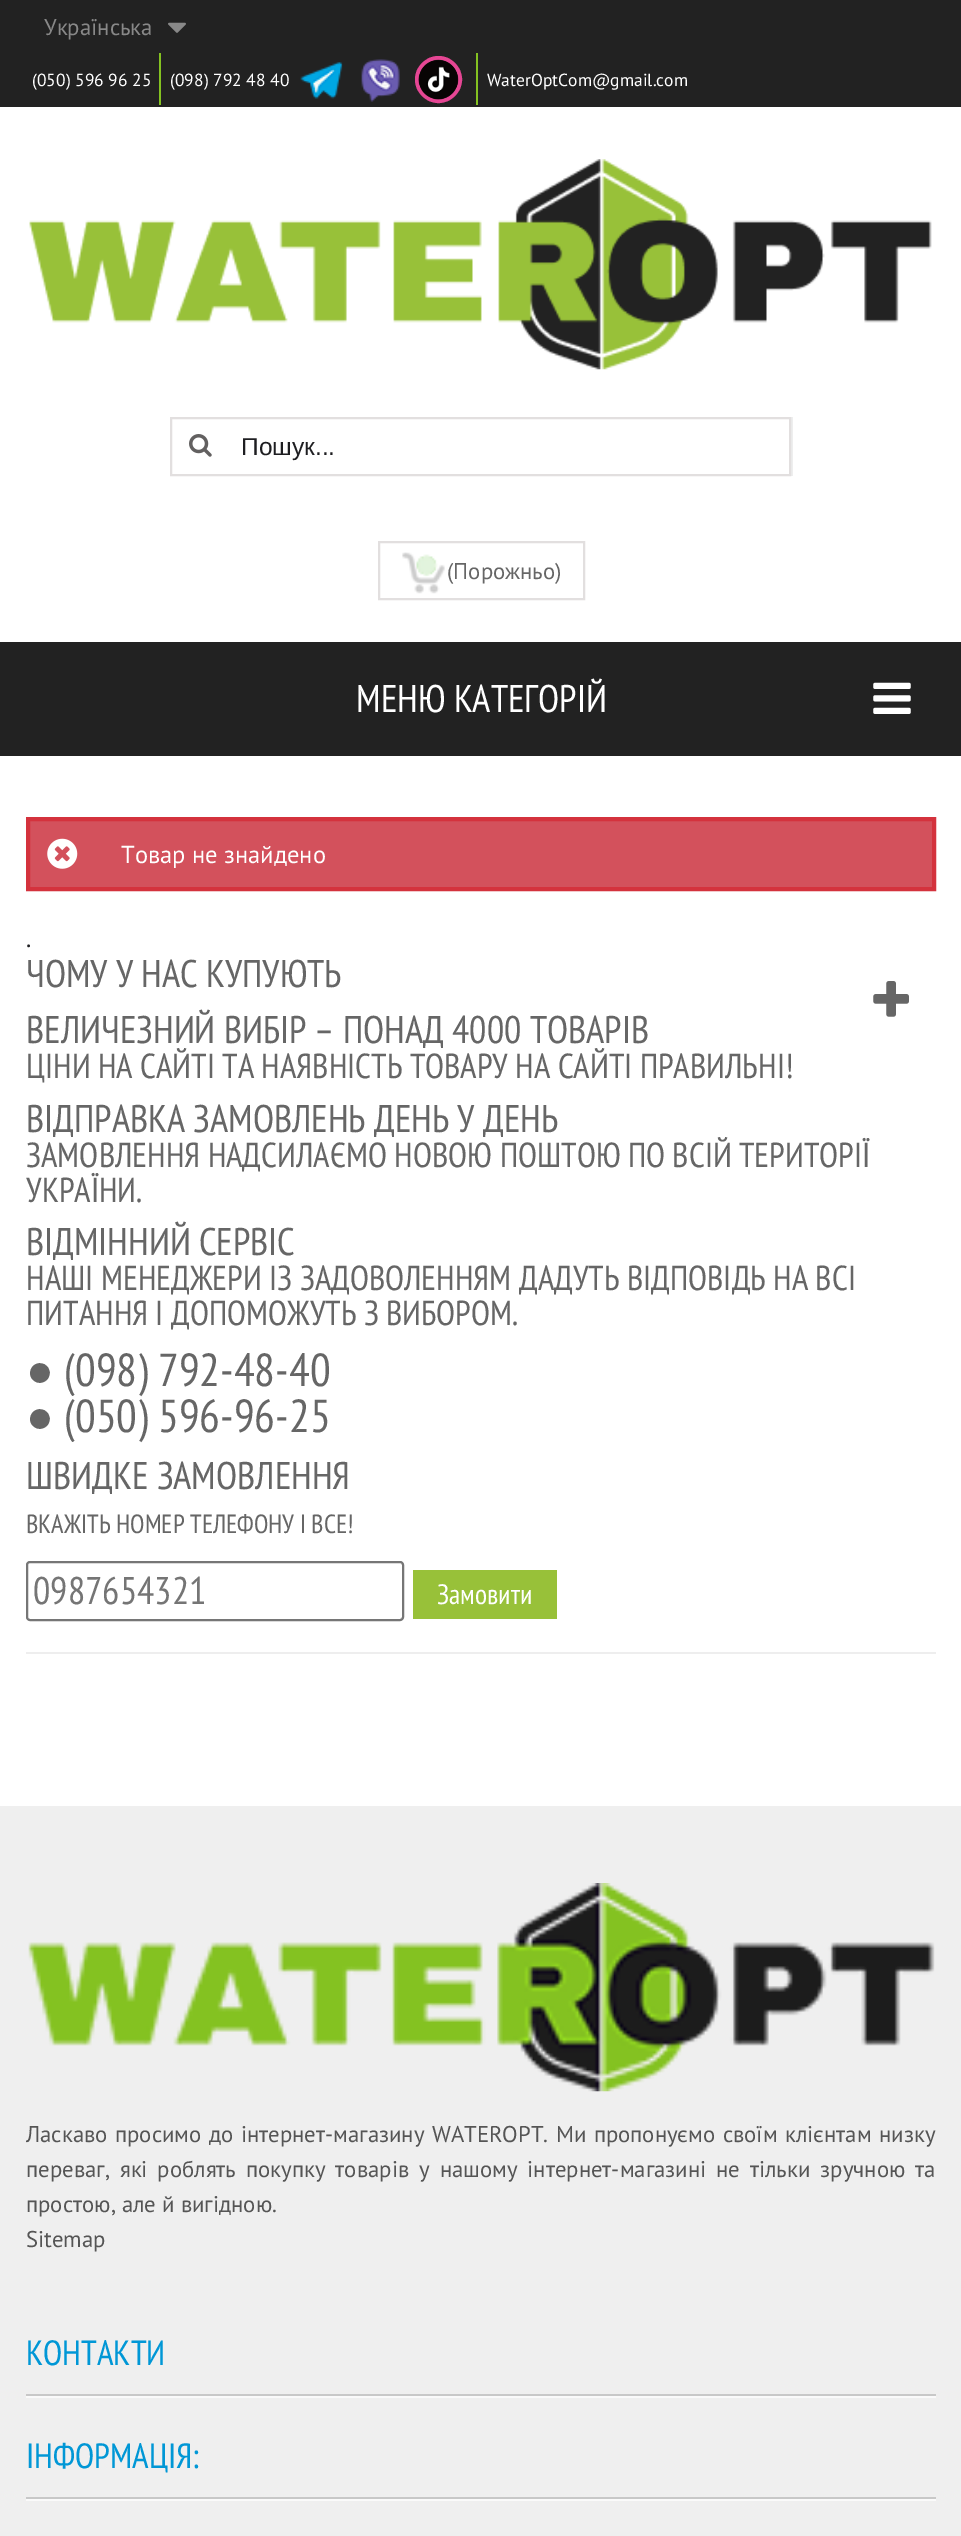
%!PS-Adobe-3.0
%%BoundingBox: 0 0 961 2536
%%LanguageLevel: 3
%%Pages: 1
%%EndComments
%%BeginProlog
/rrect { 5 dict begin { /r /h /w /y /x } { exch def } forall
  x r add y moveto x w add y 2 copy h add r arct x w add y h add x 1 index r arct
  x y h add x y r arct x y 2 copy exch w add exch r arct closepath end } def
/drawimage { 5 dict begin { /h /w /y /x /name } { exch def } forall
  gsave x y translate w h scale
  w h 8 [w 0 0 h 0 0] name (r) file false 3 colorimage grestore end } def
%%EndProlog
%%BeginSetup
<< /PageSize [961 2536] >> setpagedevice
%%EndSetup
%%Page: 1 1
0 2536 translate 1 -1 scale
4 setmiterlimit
1 setgray
0 0 961 2536 rectfill
0.133 setgray
0 0 961 107 rectfill
(images/1.raw) 168 22 18 11 drawimage
0.518 0.761 0.129 setrgbcolor
159 53 2 52 rectfill
476 53 2 52 rectfill
(images/2.raw) 361 59 39 43 drawimage
0.902 0.275 0.58 setrgbcolor
4 setlinewidth
newpath 438.5 79.5 21.5 0 360 arc closepath stroke
(images/3.raw) 300 62 43 37 drawimage
(images/4.raw) 418 59 41 41 drawimage
(images/5.raw) 29 159 903 211 drawimage
0.933 setgray
791 417 2 59 rectfill
0.886 0.875 0.875 setrgbcolor
2 setlinewidth
171 418 619 57 rectstroke
(images/6.raw) 189 434 23 23 drawimage
379 542 205 57 rectstroke
(images/7.raw) 402 552 43 42 drawimage
0.133 setgray
0 642 961 114 rectfill
(images/8.raw) 873 682 38 32 drawimage
0.827 0.318 0.361 setrgbcolor
newpath 28 819 moveto 934 819 lineto 934 889 lineto 28 889 lineto closepath gsave fill grestore
0.831 0.196 0.239 setrgbcolor
4 setlinewidth
stroke
(images/9.raw) 47 838 31 31 drawimage
(images/10.raw) 873 981 36 36 drawimage
0.463 setgray
2 setlinewidth
27 1562 376 58 3 rrect stroke
0.596 0.757 0.224 setrgbcolor
413 1570 144 49 rectfill
0.933 setgray
26 1652 910 2 rectfill
0.937 setgray
0 1806 961 730 rectfill
(images/11.raw) 28 1883 907 209 drawimage
0.98 setgray
newpath 26 2312 moveto 26 2398 lineto 936 2398 lineto 936 2396 lineto 26 2396 lineto closepath fill
0.784 setgray
26 2394 910 2 rectfill
0.98 setgray
newpath 26 2415 moveto 26 2501 lineto 936 2501 lineto 936 2499 lineto 26 2499 lineto closepath fill
0.784 setgray
26 2497 910 2 rectfill
/PTSans-Regular [22.75 0 0 -22.75 0 0] selectfont
0.533 setgray
44 35 moveto (Українська) show
/PTSans-Regular [17.5 0 0 -17.5 0 0] selectfont
1 setgray
32 86 moveto (\(050\) 596 96 25) show
170 86 moveto (\(098\) 792 48 40) show
487 86 moveto (WaterOptCom@gmail.com) show
/LiberationSans-Regular [24.5 0 0 -24.5 0 0] selectfont
0.118 0.118 0.129 setrgbcolor
241 455 moveto (Пошук...) show
/PTSans-Regular [22.75 0 0 -22.75 0 0] selectfont
0.4 setgray
447 579 moveto (\(Порожньо\)) show
/PTSansNarrow-Regular [38.5 0 0 -38.5 0 0] selectfont
1 setgray
356 712 moveto (МЕНЮ КАТЕГОРІЙ) show
/PTSans-Regular [24.5 0 0 -24.5 0 0] selectfont
121 863 moveto (Товар не знайдено) show
0.118 0.118 0.129 setrgbcolor
26 947 moveto (.) show
/PTSansNarrow-Regular [38.5 0 0 -38.5 0 0] selectfont
0.4 setgray
26 987 moveto (ЧОМУ У НАС КУПУЮТЬ) show
26 1043 moveto (ВЕЛИЧЕЗНИЙ ВИБІР – ПОНАД 4000 ТОВАРІВ) show
/PTSansNarrow-Regular [34.65 0 0 -34.65 0 0] selectfont
26 1078 moveto (ЦІНИ НА САЙТІ ТА НАЯВНІСТЬ ТОВАРУ НА САЙТІ ПРАВИЛЬНІ!) show
/PTSansNarrow-Regular [38.5 0 0 -38.5 0 0] selectfont
26 1132 moveto (ВІДПРАВКА ЗАМОВЛЕНЬ ДЕНЬ У ДЕНЬ) show
/PTSansNarrow-Regular [34.65 0 0 -34.65 0 0] selectfont
26 1167 moveto (ЗАМОВЛЕННЯ НАДСИЛАЄМО НОВОЮ ПОШТОЮ ПО ВСІЙ ТЕРИТОРІЇ) show
26 1202 moveto (УКРАЇНИ.) show
/PTSansNarrow-Regular [38.5 0 0 -38.5 0 0] selectfont
26 1255 moveto (ВІДМІННИЙ СЕРВІС) show
/PTSansNarrow-Regular [34.65 0 0 -34.65 0 0] selectfont
26 1290 moveto (НАШІ МЕНЕДЖЕРИ ІЗ ЗАДОВОЛЕННЯМ ДАДУТЬ ВІДПОВІДЬ НА ВСІ) show
26 1325 moveto (ПИТАННЯ І ДОПОМОЖУТЬ З ВИБОРОМ.) show
/LiberationSans-Regular [46.25 0 0 -46.25 0 0] selectfont
26 1386 moveto (●) show
/PTSansNarrow-Regular [46.25 0 0 -46.25 0 0] selectfont
64 1386 moveto (\(098\) 792-48-40) show
/LiberationSans-Regular [46.25 0 0 -46.25 0 0] selectfont
26 1432 moveto (●) show
/PTSansNarrow-Regular [46.25 0 0 -46.25 0 0] selectfont
64 1432 moveto (\(050\) 596-96-25) show
/PTSansNarrow-Regular [38.5 0 0 -38.5 0 0] selectfont
26 1489 moveto (ШВИДКЕ ЗАМОВЛЕННЯ) show
/PTSansNarrow-Regular [26.25 0 0 -26.25 0 0] selectfont
26 1533 moveto (ВКАЖІТЬ НОМЕР ТЕЛЕФОНУ І ВСЕ!) show
/PTSansNarrow-Regular [38.5 0 0 -38.5 0 0] selectfont
0.459 setgray
33 1604 moveto (0987654321) show
/PTSansNarrow-Regular [28 0 0 -28 0 0] selectfont
1 setgray
437 1604 moveto (Замовити) show
/PTSans-Regular [22.75 0 0 -22.75 0 0] selectfont
0.333 setgray
26 2142 moveto 1.5 0 32 (Ласкаво просимо до інтернет-магазину WATEROPT. Ми пропонуємо своїм клієнтам низку) widthshow
26 2177 moveto 3.9 0 32 (переваг, які роблять покупку товарів у нашому інтернет-магазині не тільки зручною та) widthshow
26 2212 moveto (простою, але й вигідною.) show
26 2247 moveto (Sitemap) show
/PTSansNarrow-Regular [35 0 0 -35 0 0] selectfont
0 0.592 0.839 setrgbcolor
26 2365 moveto (КОНТАКТИ) show
26 2468 moveto (ІНФОРМАЦІЯ:) show
showpage
%%EOF
